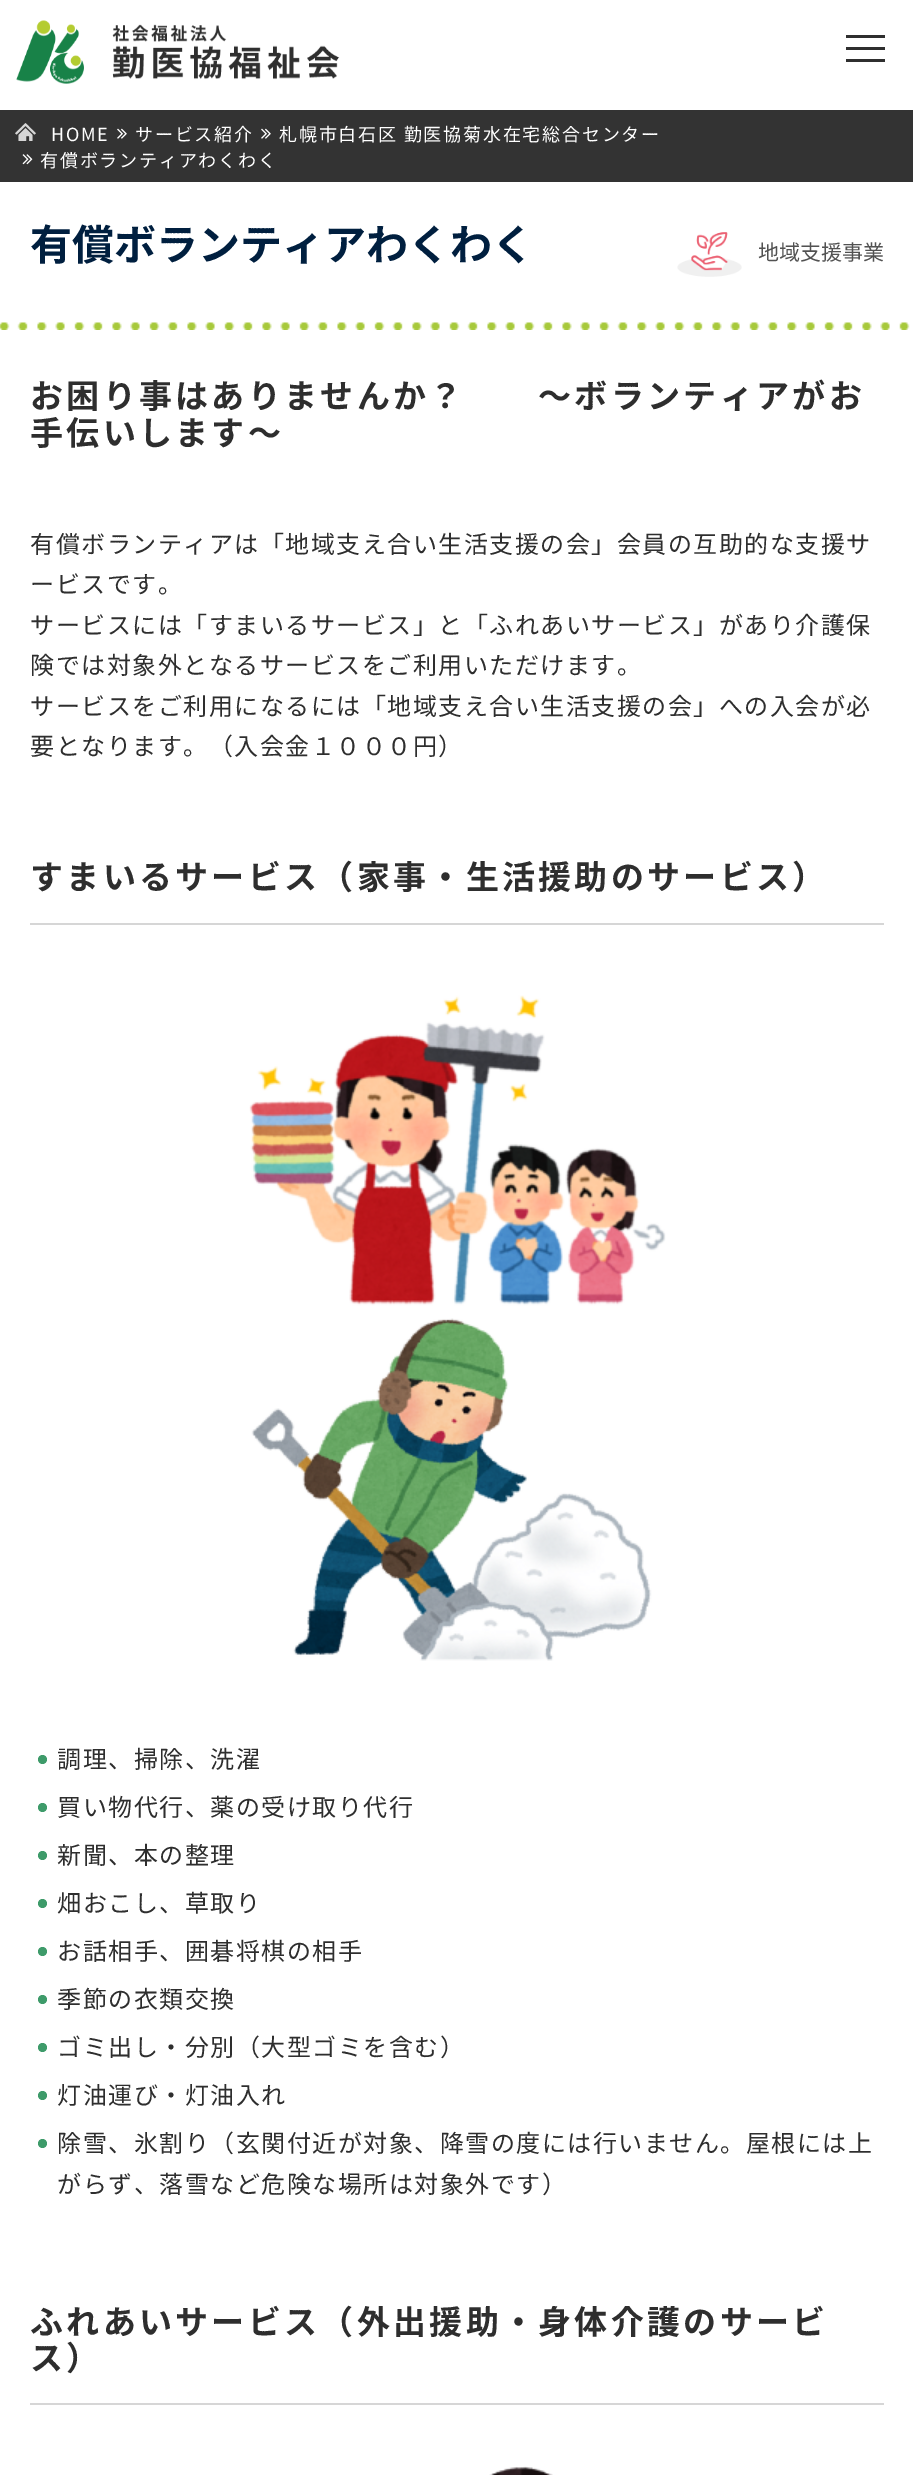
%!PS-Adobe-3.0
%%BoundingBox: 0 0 913 2475
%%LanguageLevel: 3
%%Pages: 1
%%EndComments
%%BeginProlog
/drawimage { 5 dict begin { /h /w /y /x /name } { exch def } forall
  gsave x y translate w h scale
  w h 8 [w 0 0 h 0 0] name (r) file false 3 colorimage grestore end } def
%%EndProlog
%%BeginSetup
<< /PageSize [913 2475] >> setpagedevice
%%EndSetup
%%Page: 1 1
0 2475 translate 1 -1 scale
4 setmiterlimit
1 setgray
0 0 913 2475 rectfill
(images/1.raw) 16 20 324 64 drawimage
0.184 setgray
846 35 39 3 rectfill
846 47 39 3 rectfill
846 59 39 3 rectfill
0.2 setgray
0 110 913 72 rectfill
(images/2.raw) 15 123 21 18 drawimage
(images/3.raw) 117 128 10 11 drawimage
(images/3.raw) 261 128 10 11 drawimage
(images/4.raw) 22 154 11 11 drawimage
(images/5.raw) 0 322 910 8 drawimage
(images/6.raw) 677 232 65 45 drawimage
0.839 setgray
30 923 854 2 rectfill
(images/7.raw) 249 995 417 666 drawimage
0.243 0.608 0.416 setrgbcolor
newpath 42.5 1759.5 4.5 0 360 arc closepath fill
newpath 42.5 1807.5 4.5 0 360 arc closepath fill
newpath 42.5 1855.5 4.5 0 360 arc closepath fill
newpath 42.5 1903.5 4.5 0 360 arc closepath fill
newpath 42.5 1951.5 4.5 0 360 arc closepath fill
newpath 42.5 1999.5 4.5 0 360 arc closepath fill
newpath 42.5 2047.5 4.5 0 360 arc closepath fill
newpath 42.5 2095.5 4.5 0 360 arc closepath fill
newpath 42.5 2143.5 4.5 0 360 arc closepath fill
0.839 setgray
30 2403 854 2 rectfill
(images/8.raw) 489 2466 64 9 drawimage
/NotoSansJP-Regular [18 0 0 -18 0 0] selectfont
1 setgray
51 141 moveto 1.8 0 (HOME) ashow
135 141 moveto 1.8 0 (サービス紹介) ashow
279 141 moveto 1.8 0 (札幌市白石区 勤医協菊水在宅総合センター) ashow
40 167 moveto 1.8 0 (有償ボランティアわくわく) ashow
/NotoSansJP-Bold [42 0 0 -42 0 0] selectfont
0 0.122 0.247 setrgbcolor
30 260 moveto (有償ボランティアわくわく) show
/NotoSansJP-Regular [21 0 0 -21 0 0] selectfont
0.322 setgray
758 260 moveto (地域支援事業) show
/NotoSansJP-Bold [33 0 0 -33 0 0] selectfont
0.18 setgray
30 408 moveto 3.3 0 (お困り事はありませんか？　　～ボランティアがお) ashow
30 445 moveto 3.3 0 (手伝いします～) ashow
/NotoSansJP-Regular [24 0 0 -24 0 0] selectfont
30 553 moveto 1.5 0 (有償ボランティアは「地域支え合い生活支援の会」会員の互助的な支援サ) ashow
30 593 moveto 1.5 0 (ービスです。) ashow
30 634 moveto 1.5 0 (サービスには「すまいるサービス」と「ふれあいサービス」があり介護保) ashow
30 674 moveto 1.5 0 (険では対象外となるサービスをご利用いただけます。) ashow
30 715 moveto 1.5 0 (サービスをご利用になるには「地域支え合い生活支援の会」への入会が必) ashow
30 755 moveto 1.5 0 (要となります。（入会金１０００円）) ashow
/NotoSansJP-Bold [33 0 0 -33 0 0] selectfont
30 889 moveto 3.3 0 (すまいるサービス（家事・生活援助のサービス）) ashow
/NotoSansJP-Regular [24 0 0 -24 0 0] selectfont
57 1768 moveto 1.5 0 (調理、掃除、洗濯) ashow
57 1816 moveto 1.5 0 (買い物代行、薬の受け取り代行) ashow
57 1864 moveto 1.5 0 (新聞、本の整理) ashow
57 1912 moveto 1.5 0 (畑おこし、草取り) ashow
57 1960 moveto 1.5 0 (お話相手、囲碁将棋の相手) ashow
57 2008 moveto 1.5 0 (季節の衣類交換) ashow
57 2056 moveto 1.5 0 (ゴミ出し・分別（大型ゴミを含む）) ashow
57 2104 moveto 1.5 0 (灯油運び・灯油入れ) ashow
57 2152 moveto 1.5 0 (除雪、氷割り（玄関付近が対象、降雪の度には行いません。屋根には上) ashow
57 2193 moveto 1.5 0 (がらず、落雪など危険な場所は対象外です）) ashow
/NotoSansJP-Bold [33 0 0 -33 0 0] selectfont
30 2334 moveto 3.3 0 (ふれあいサービス（外出援助・身体介護のサービ) ashow
30 2370 moveto 3.3 0 (ス）) ashow
showpage
%%EOF
